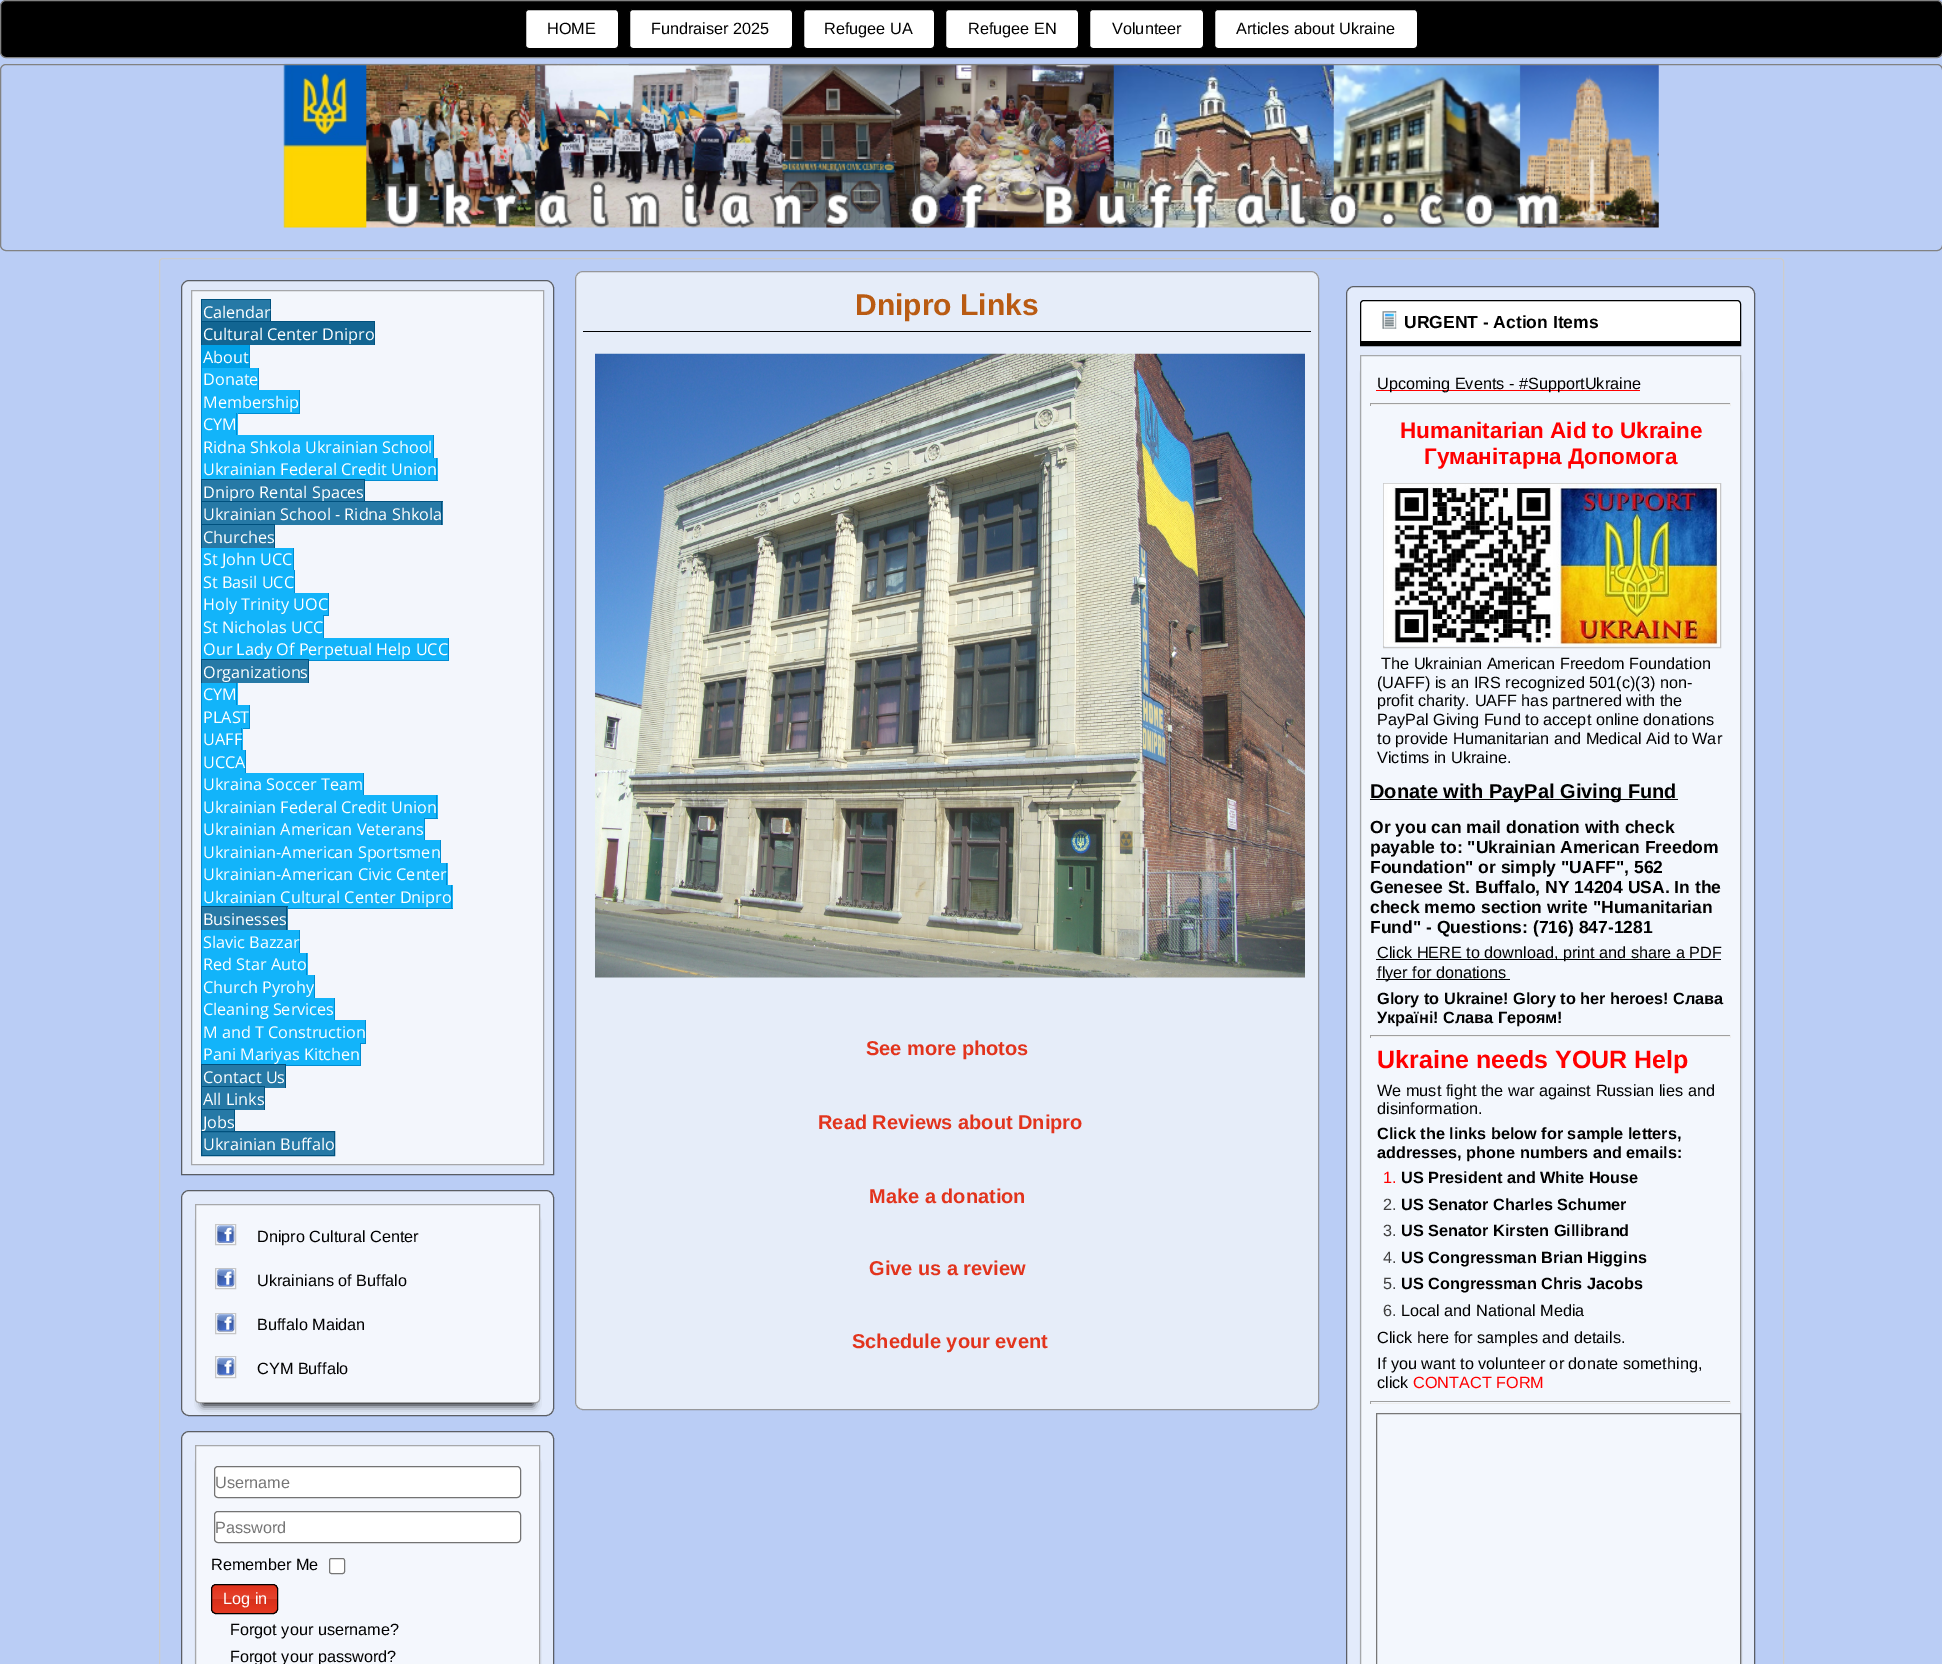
%!PS-Adobe-3.0
%%BoundingBox: 0 0 1942 1664
%%LanguageLevel: 3
%%Pages: 1
%%EndComments
%%BeginProlog
/setalpha { dup .setfillconstantalpha .setstrokeconstantalpha } def
/rrect { 5 dict begin { /r /h /w /y /x } { exch def } forall
  x r add y moveto x w add y 2 copy h add r arct x w add y h add x 1 index r arct
  x y h add x y r arct x y 2 copy exch w add exch r arct closepath end } def
/softshadow { 12 dict begin { /a /b /q /h /w /y /x } { exch def } forall gsave /was 0 def
  9 -2 -9 { dup b mul 4 div /e exch def 1 sub .425 mul 2.718 exch exp 1 add a .99 .min exch div /now exch def
    1 1 now sub 1 was sub div sub setalpha /was now def
    w h .min e 2 mul add 0 gt { x e sub y e sub w e 2 mul add h e 2 mul add
      q e add b .6 mul add w h .min 2 div e add .min 0 .max rrect fill } if } for grestore end } def
/drawimage { 5 dict begin { /h /w /y /x /name } { exch def } forall
  gsave x y translate w h scale
  w h 8 [w 0 0 h 0 0] name (r) file false 3 colorimage grestore end } def
%%EndProlog
%%BeginSetup
<< /PageSize [1942 1664] /PageUsesTransparency true >> setpagedevice
%%EndSetup
%%Page: 1 1
0 .pushpdf14devicefilter
0 1664 translate 1 -1 scale
4 setmiterlimit
0.729 0.804 0.961 setrgbcolor
0 0 1942 1664 rectfill
0 setgray
0.5 0.5 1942 57 5.5 rrect gsave fill grestore
0.51 setgray
stroke
1 setgray
525.5 9.5 93 39 3.5 rrect gsave fill grestore
0 setgray
stroke
1 setgray
629.5 9.5 163 39 3.5 rrect gsave fill grestore
0 setgray
stroke
1 setgray
803.5 9.5 131 39 3.5 rrect gsave fill grestore
0 setgray
stroke
1 setgray
945.5 9.5 133 39 3.5 rrect gsave fill grestore
0 setgray
stroke
1 setgray
1089.5 9.5 114 39 3.5 rrect gsave fill grestore
0 setgray
stroke
1 setgray
1214.5 9.5 203 39 3.5 rrect gsave fill grestore
0 setgray
stroke
(images/1.raw) 283 63 1376 165 drawimage
0.51 setgray
0.5 64.5 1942 186 5.5 rrect stroke
0.8 setgray
159.5 258.5 1624 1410 3.5 rrect stroke
0.875 0.91 0.976 setrgbcolor
newpath 189 280 moveto 546 280 lineto 550.5 280 554 283.5 554 288 curveto 554 1175 lineto 181 1175 lineto 181 288 lineto 181 283.5 184.5 280 189 280 curveto closepath fill
0.6 setalpha
0 setgray
newpath 189 280.5 moveto 546 280.5 lineto 550 280.5 553.5 284 553.5 288 curveto 553.5 1174.5 lineto 181.5 1174.5 lineto 181.5 288 lineto 181.5 284 185 280.5 189 280.5 curveto closepath stroke
1 setalpha
0.953 0.965 0.988 setrgbcolor
newpath 191.5 290.5 moveto 543.5 290.5 lineto 543.5 1164.5 lineto 191.5 1164.5 lineto closepath gsave fill grestore
0.651 0.655 0.667 setrgbcolor
stroke
0.149 0.475 0.651 setrgbcolor
202 300 68 21 rectfill
0 0.318 0.494 setrgbcolor
201 299 70 1 rectfill
270 299 1 24 rectfill
201 299 1 24 rectfill
0.071 0.396 0.573 setrgbcolor
202 322 172 23 rectfill
0 0.318 0.494 setrgbcolor
201 321 174 1 rectfill
374 321 1 24 rectfill
201 321 1 24 rectfill
0 0.627 0.902 setrgbcolor
202 345 47 23 rectfill
0 0.549 0.824 setrgbcolor
249 345 1 24 rectfill
201 345 1 136 rectfill
0.071 0.706 0.98 setrgbcolor
202 368 56 22 rectfill
0 0.549 0.824 setrgbcolor
258 368 1 23 rectfill
0.071 0.706 0.98 setrgbcolor
202 390 97 23 rectfill
0 0.549 0.824 setrgbcolor
299 390 1 24 rectfill
238 413 62 1 rectfill
0.071 0.706 0.98 setrgbcolor
202 413 36 22 rectfill
0 0.549 0.824 setrgbcolor
236 413 1 23 rectfill
0.071 0.706 0.98 setrgbcolor
202 435 231 23 rectfill
0 0.549 0.824 setrgbcolor
433 435 1 24 rectfill
0.071 0.706 0.98 setrgbcolor
202 458 236 22 rectfill
0 0.549 0.824 setrgbcolor
436 458 1 23 rectfill
365 480 73 1 rectfill
0.149 0.475 0.651 setrgbcolor
202 480 162 21 rectfill
0 0.318 0.494 setrgbcolor
201 479 164 1 rectfill
364 479 1 24 rectfill
201 479 1 24 rectfill
0.149 0.475 0.651 setrgbcolor
202 502 241 23 rectfill
202 525 72 23 rectfill
0.071 0.706 0.98 setrgbcolor
202 548 91 22 rectfill
0 0.549 0.824 setrgbcolor
293 548 1 23 rectfill
201 548 1 113 rectfill
0.071 0.706 0.98 setrgbcolor
202 570 92 23 rectfill
0 0.549 0.824 setrgbcolor
294 570 1 24 rectfill
0.071 0.706 0.98 setrgbcolor
202 593 126 22 rectfill
0 0.549 0.824 setrgbcolor
328 593 1 23 rectfill
324 615 5 1 rectfill
0.071 0.706 0.98 setrgbcolor
202 615 121 23 rectfill
0 0.549 0.824 setrgbcolor
323 615 1 24 rectfill
0.071 0.706 0.98 setrgbcolor
202 638 246 22 rectfill
0 0.549 0.824 setrgbcolor
448 638 1 23 rectfill
309 660 140 1 rectfill
0.149 0.475 0.651 setrgbcolor
202 660 106 23 rectfill
0 0.318 0.494 setrgbcolor
201 659 108 1 rectfill
308 659 1 24 rectfill
201 659 1 24 rectfill
0.071 0.706 0.98 setrgbcolor
202 683 36 22 rectfill
0 0.549 0.824 setrgbcolor
236 683 1 23 rectfill
201 683 1 226 rectfill
0.071 0.706 0.98 setrgbcolor
202 705 47 23 rectfill
0 0.549 0.824 setrgbcolor
249 705 1 24 rectfill
243 728 7 1 rectfill
0.071 0.706 0.98 setrgbcolor
202 728 41 22 rectfill
0 0.549 0.824 setrgbcolor
241 728 1 23 rectfill
0.071 0.706 0.98 setrgbcolor
202 750 43 23 rectfill
0 0.549 0.824 setrgbcolor
245 750 1 24 rectfill
0.071 0.706 0.98 setrgbcolor
202 773 161 22 rectfill
0 0.549 0.824 setrgbcolor
363 773 1 23 rectfill
0.071 0.706 0.98 setrgbcolor
202 795 236 23 rectfill
0 0.549 0.824 setrgbcolor
436 795 1 24 rectfill
425 818 13 1 rectfill
0.071 0.706 0.98 setrgbcolor
202 818 222 22 rectfill
0 0.549 0.824 setrgbcolor
424 818 1 23 rectfill
0.071 0.706 0.98 setrgbcolor
202 840 238 23 rectfill
0 0.549 0.824 setrgbcolor
440 840 1 24 rectfill
0.071 0.706 0.98 setrgbcolor
202 863 246 22 rectfill
0 0.549 0.824 setrgbcolor
446 863 1 23 rectfill
0.071 0.706 0.98 setrgbcolor
202 885 251 23 rectfill
0 0.549 0.824 setrgbcolor
451 885 1 24 rectfill
288 908 165 1 rectfill
0.149 0.475 0.651 setrgbcolor
202 907 86 23 rectfill
0.071 0.706 0.98 setrgbcolor
202 930 97 23 rectfill
0 0.549 0.824 setrgbcolor
299 930 1 24 rectfill
201 930 1 136 rectfill
0.071 0.706 0.98 setrgbcolor
202 953 106 22 rectfill
0 0.549 0.824 setrgbcolor
306 953 1 23 rectfill
0.071 0.706 0.98 setrgbcolor
202 975 112 23 rectfill
0 0.549 0.824 setrgbcolor
314 975 1 24 rectfill
0.071 0.706 0.98 setrgbcolor
202 998 132 22 rectfill
0 0.549 0.824 setrgbcolor
334 998 1 23 rectfill
0.071 0.706 0.98 setrgbcolor
202 1020 163 23 rectfill
0 0.549 0.824 setrgbcolor
365 1020 1 24 rectfill
361 1043 5 1 rectfill
0.071 0.706 0.98 setrgbcolor
202 1043 158 22 rectfill
0 0.549 0.824 setrgbcolor
360 1043 1 23 rectfill
286 1065 75 1 rectfill
0.149 0.475 0.651 setrgbcolor
202 1065 83 23 rectfill
0 0.318 0.494 setrgbcolor
201 1064 85 1 rectfill
285 1064 1 24 rectfill
201 1064 1 24 rectfill
0.149 0.475 0.651 setrgbcolor
202 1088 62 22 rectfill
0 0.318 0.494 setrgbcolor
201 1086 64 1 rectfill
264 1086 1 24 rectfill
201 1086 1 24 rectfill
0.149 0.475 0.651 setrgbcolor
202 1110 32 21 rectfill
0 0.318 0.494 setrgbcolor
201 1109 34 1 rectfill
234 1109 1 24 rectfill
201 1109 1 24 rectfill
0.89 0.922 0.984 setrgbcolor
181 1190 373 226 8 rrect fill
0.6 setalpha
0 setgray
181.5 1190.5 372 225 7.5 rrect stroke
gsave
newpath 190 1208 moveto 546 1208 lineto 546 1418 lineto 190 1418 lineto closepath 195 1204 moveto 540 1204 lineto 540 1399 lineto 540 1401 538 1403 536 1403 curveto 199 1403 lineto 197 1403 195 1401 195 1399 curveto closepath eoclip newpath
1 setalpha
203 1221 330 184 0 4 1 softshadow
grestore
1 setgray
newpath 195 1204 moveto 540 1204 lineto 540 1399 lineto 540 1401 538 1403 536 1403 curveto 199 1403 lineto 197 1403 195 1401 195 1399 curveto closepath fill
0.451 setgray
newpath 195.5 1204.5 moveto 539.5 1204.5 lineto 539.5 1399 lineto 539.5 1401 538 1402.5 536 1402.5 curveto 199 1402.5 lineto 197 1402.5 195.5 1401 195.5 1399 curveto closepath stroke
1 setalpha
0.78 setgray
215.5 1224.5 20 20 rectstroke
(images/2.raw) 217 1225 18 18 drawimage
215.5 1268.5 20 20 rectstroke
(images/3.raw) 217 1268 18 19 drawimage
215.5 1313.5 20 20 rectstroke
(images/3.raw) 217 1313 18 19 drawimage
215.5 1356.5 20 21 rectstroke
(images/4.raw) 217 1357 18 19 drawimage
0.89 0.922 0.984 setrgbcolor
181 1431 373 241 8 rrect fill
0.6 setalpha
0 setgray
181.5 1431.5 372 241 7.5 rrect stroke
1 setalpha
203 1463 330 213 0 4 1 softshadow
0.957 0.969 0.992 setrgbcolor
newpath 195.5 1445.5 moveto 539.5 1445.5 lineto 539.5 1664.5 lineto 195.5 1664.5 lineto closepath gsave fill grestore
0.655 0.659 0.667 setrgbcolor
stroke
1 setgray
214.5 1466.5 306 31 3.5 rrect gsave fill grestore
0.451 setgray
stroke
1 setgray
214.5 1511.5 306 31 3.5 rrect gsave fill grestore
0.451 setgray
stroke
1 setgray
329.5 1558.5 15 15 2 rrect gsave fill grestore
0.463 setgray
stroke
gsave 211.5 1584.5 66 29 4.5 rrect clip newpath
<< /ShadingType 2 /ColorSpace /DeviceRGB /Coords [244 1584 244 1614] /Extend [true true] /Function << /FunctionType 3 /Domain [0 1] /Functions [<< /FunctionType 2 /Domain [0 1] /C0 [0.867 0.2 0.114] /C1 [0.886 0.204 0.114] /N 1 >> << /FunctionType 2 /Domain [0 1] /C0 [0.886 0.204 0.114] /C1 [0.894 0.267 0.184] /N 1 >> << /FunctionType 2 /Domain [0 1] /C0 [0.831 0.192 0.11] /C1 [0.886 0.204 0.114] /N 1 >> << /FunctionType 2 /Domain [0 1] /C0 [0.886 0.204 0.114] /C1 [0.89 0.235 0.149] /N 1 >>] /Bounds [0.1 0.5 0.8] /Encode [0 1 0 1 0 1 0 1] >> >> shfill grestore
0 setgray
211.5 1584.5 66 29 4.5 rrect stroke
0.902 0.929 0.976 setrgbcolor
575 271 744 1139 8 rrect fill
0.8 setalpha
0.51 setgray
575.5 271.5 743 1138 7.5 rrect stroke
1 setalpha
0 setgray
583 331 728 1 rectfill
(images/5.raw) 595 353 710 625 drawimage
0.89 0.922 0.984 setrgbcolor
1346 286 409 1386 8 rrect fill
0.6 setalpha
0 setgray
1346.5 286.5 408 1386 7.5 rrect stroke
1 setalpha
1 setgray
newpath 1363.5 301 moveto 1737.5 301 lineto 1739 301 1740 302 1740 303.5 curveto 1740 341 lineto 1361 341 lineto 1361 303.5 lineto 1361 302 1362 301 1363.5 301 curveto closepath fill
0 setgray
newpath 1364 300.5 moveto 1737 300.5 lineto 1739 300.5 1740.5 302 1740.5 304 curveto 1740.5 345.5 lineto 1360.5 345.5 lineto 1360.5 304 lineto 1360.5 302 1362 300.5 1364 300.5 curveto closepath stroke
1360 341 381 4 rectfill
(images/6.raw) 1382 311 15 18 drawimage
1368 373 366 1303 0 4 1 softshadow
0.953 0.969 0.992 setrgbcolor
newpath 1360.5 355.5 moveto 1740.5 355.5 lineto 1740.5 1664.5 lineto 1360.5 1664.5 lineto closepath gsave fill grestore
0.651 0.659 0.667 setrgbcolor
stroke
1 0 0 setrgbcolor
1376 390 264 1 rectfill
0.624 setgray
1370 403 361 1 rectfill
0.933 setgray
1730 403 1 3 rectfill
1370 404 361 1 rectfill
0.624 setgray
1370 403 1 3 rectfill
0.78 setgray
1383.5 483.5 337 164 rectstroke
(images/7.raw) 1383 483 337 163 drawimage
0 setgray
1370 799 308 1 rectfill
1376 959 345 1 rectfill
1376 979 134 1 rectfill
0.624 setgray
1370 1035 361 1 rectfill
0.933 setgray
1730 1035 1 3 rectfill
1370 1036 361 1 rectfill
0.624 setgray
1370 1035 1 3 rectfill
1370 1401 361 1 rectfill
0.933 setgray
1730 1401 1 3 rectfill
1370 1403 361 1 rectfill
0.624 setgray
1370 1401 1 3 rectfill
0.467 setgray
1376.5 1413.5 364 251 rectstroke
/LiberationSans-Regular [16.25 0 0 -16.25 0 0] selectfont
0 setgray
547 34 moveto (HOME) show
651 34 moveto (Fundraiser 2025) show
824 34 moveto (Refugee UA) show
968 34 moveto (Refugee EN) show
1112 34 moveto (Volunteer) show
1236 34 moveto (Articles about Ukraine) show
/OpenSans-Regular [16.25 0 0 -16.25 0 0] selectfont
1 setgray
203 318 moveto (Calendar) show
203 340 moveto (Cultural Center Dnipro) show
203 363 moveto (About) show
203 385 moveto (Donate) show
203 408 moveto (Membership) show
203 430 moveto (CYM) show
203 453 moveto (Ridna Shkola Ukrainian School) show
203 475 moveto (Ukrainian Federal Credit Union) show
203 498 moveto (Dnipro Rental Spaces) show
203 520 moveto (Ukrainian School - Ridna Shkola) show
0 0.318 0.494 setrgbcolor
201 501 242 1 rectfill
441 501 1 24 rectfill
201 501 1 24 rectfill
1 setgray
203 543 moveto (Churches) show
0 0.318 0.494 setrgbcolor
201 524 74 1 rectfill
274 524 1 24 rectfill
201 524 1 24 rectfill
1 setgray
203 565 moveto (St John UCC) show
203 588 moveto (St Basil UCC) show
203 610 moveto (Holy Trinity UOC) show
203 633 moveto (St Nicholas UCC) show
203 655 moveto (Our Lady Of Perpetual Help UCC) show
203 678 moveto (Organizations) show
203 700 moveto (CYM) show
203 723 moveto (PLAST) show
203 745 moveto (UAFF) show
203 768 moveto (UCCA) show
203 790 moveto (Ukraina Soccer Team) show
203 813 moveto (Ukrainian Federal Credit Union) show
203 835 moveto (Ukrainian American Veterans) show
203 858 moveto (Ukrainian-American Sportsmen) show
203 880 moveto (Ukrainian-American Civic Center) show
203 903 moveto (Ukrainian Cultural Center Dnipro) show
203 925 moveto (Businesses) show
0 0.318 0.494 setrgbcolor
201 906 87 1 rectfill
286 906 1 24 rectfill
201 906 1 24 rectfill
1 setgray
203 948 moveto (Slavic Bazzar) show
203 970 moveto (Red Star Auto) show
203 993 moveto (Church Pyrohy) show
203 1015 moveto (Cleaning Services) show
203 1038 moveto (M and T Construction) show
203 1060 moveto (Pani Mariyas Kitchen) show
203 1083 moveto (Contact Us) show
203 1105 moveto (All Links) show
203 1128 moveto (Jobs) show
0.149 0.475 0.651 setrgbcolor
newpath 201.5 1131.5 moveto 334.5 1131.5 lineto 334.5 1155.5 lineto 201.5 1155.5 lineto closepath gsave fill grestore
0 0.318 0.494 setrgbcolor
stroke
1 setgray
203 1150 moveto (Ukrainian Buffalo) show
/LiberationSans-Regular [16.25 0 0 -16.25 0 0] selectfont
0 setgray
257 1242 moveto (Dnipro Cultural Center) show
257 1286 moveto (Ukrainians of Buffalo) show
257 1330 moveto (Buffalo Maidan) show
257 1374 moveto (CYM Buffalo) show
0.459 setgray
215 1488 moveto (Username) show
215 1533 moveto (Password) show
0 setgray
211 1570 moveto (Remember Me) show
1 setgray
223 1604 moveto (Log in) show
0 setgray
230 1635 moveto (Forgot your username?) show
230 1662 moveto (Forgot your password?) show
/LiberationSans-Bold [30 0 0 -30 0 0] selectfont
0.725 0.357 0.075 setrgbcolor
855 315 moveto (Dnipro Links) show
/LiberationSans-Bold [20 0 0 -20 0 0] selectfont
0.886 0.204 0.114 setrgbcolor
866 1055 moveto (See more photos) show
818 1129 moveto (Read Reviews about Dnipro) show
869 1203 moveto (Make a donation) show
869 1275 moveto (Give us a review) show
852 1348 moveto (Schedule your event) show
/LiberationSans-Bold [17.5 0 0 -17.5 0 0] selectfont
0 setgray
1404 328 moveto (URGENT - Action Items) show
/LiberationSans-Regular [16.25 0 0 -16.25 0 0] selectfont
1377 389 moveto (Upcoming Events - #SupportUkraine) show
/LiberationSans-Bold [22.5 0 0 -22.5 0 0] selectfont
1 0 0 setrgbcolor
1400 438 moveto (Humanitarian Aid to Ukraine) show
1424 464 moveto (Гуманітарна Допомога) show
/LiberationSans-Regular [16.25 0 0 -16.25 0 0] selectfont
0 setgray
1381 669 moveto (The Ukrainian American Freedom Foundation) show
1377 688 moveto (\(UAFF\) is an IRS recognized 501\(c\)\(3\) non-) show
1377 706 moveto (profit charity. UAFF has partnered with the) show
1377 725 moveto (PayPal Giving Fund to accept online donations) show
1377 744 moveto (to provide Humanitarian and Medical Aid to War) show
1377 763 moveto (Victims in Ukraine.) show
/LiberationSans-Bold [20 0 0 -20 0 0] selectfont
1370 798 moveto (Donate with PayPal Giving Fund) show
/LiberationSans-Bold [17.5 0 0 -17.5 0 0] selectfont
1370 833 moveto (Or you can mail donation with check) show
1370 853 moveto (payable to: "Ukrainian American Freedom) show
1370 873 moveto (Foundation" or simply "UAFF", 562) show
1370 893 moveto (Genesee St. Buffalo, NY 14204 USA. In the) show
1370 913 moveto (check memo section write "Humanitarian) show
1370 933 moveto (Fund" - Questions: \(716\) 847-1281) show
/LiberationSans-Regular [16.25 0 0 -16.25 0 0] selectfont
1377 958 moveto (Click HERE to download, print and share a PDF) show
1377 978 moveto (flyer for donations) show
/LiberationSans-Bold [16.25 0 0 -16.25 0 0] selectfont
1377 1004 moveto (Glory to Ukraine! Glory to her heroes! Слава) show
1377 1023 moveto (Україні! Слава Героям!) show
/LiberationSans-Bold [25 0 0 -25 0 0] selectfont
1 0 0 setrgbcolor
1377 1068 moveto (Ukraine needs YOUR Help) show
/LiberationSans-Regular [16.25 0 0 -16.25 0 0] selectfont
0 setgray
1377 1096 moveto (We must fight the war against Russian lies and) show
1377 1114 moveto (disinformation.) show
/LiberationSans-Bold [16.25 0 0 -16.25 0 0] selectfont
1377 1139 moveto (Click the links below for sample letters,) show
1377 1158 moveto (addresses, phone numbers and emails:) show
/LiberationSans-Regular [16.25 0 0 -16.25 0 0] selectfont
1 0 0 setrgbcolor
1383 1183 moveto (1.) show
/LiberationSans-Bold [16.25 0 0 -16.25 0 0] selectfont
0 setgray
1401 1183 moveto (US President and White House) show
/LiberationSans-Regular [16.25 0 0 -16.25 0 0] selectfont
0.251 setgray
1383 1210 moveto (2.) show
/LiberationSans-Bold [16.25 0 0 -16.25 0 0] selectfont
0 setgray
1401 1210 moveto (US Senator Charles Schumer) show
/LiberationSans-Regular [16.25 0 0 -16.25 0 0] selectfont
0.251 setgray
1383 1236 moveto (3.) show
/LiberationSans-Bold [16.25 0 0 -16.25 0 0] selectfont
0 setgray
1401 1236 moveto (US Senator Kirsten Gillibrand) show
/LiberationSans-Regular [16.25 0 0 -16.25 0 0] selectfont
0.251 setgray
1383 1263 moveto (4.) show
/LiberationSans-Bold [16.25 0 0 -16.25 0 0] selectfont
0 setgray
1401 1263 moveto (US Congressman Brian Higgins) show
/LiberationSans-Regular [16.25 0 0 -16.25 0 0] selectfont
0.251 setgray
1383 1289 moveto (5.) show
/LiberationSans-Bold [16.25 0 0 -16.25 0 0] selectfont
0 setgray
1401 1289 moveto (US Congressman Chris Jacobs) show
/LiberationSans-Regular [16.25 0 0 -16.25 0 0] selectfont
0.251 setgray
1383 1316 moveto (6.) show
0 setgray
1401 1316 moveto (Local and National Media) show
1377 1343 moveto (Click here for samples and details.) show
1377 1369 moveto (If you want to volunteer or donate something,) show
1377 1388 moveto (click) show
1 0 0 setrgbcolor
1413 1388 moveto (CONTACT FORM) show
.poppdf14devicefilter showpage
%%EOF
